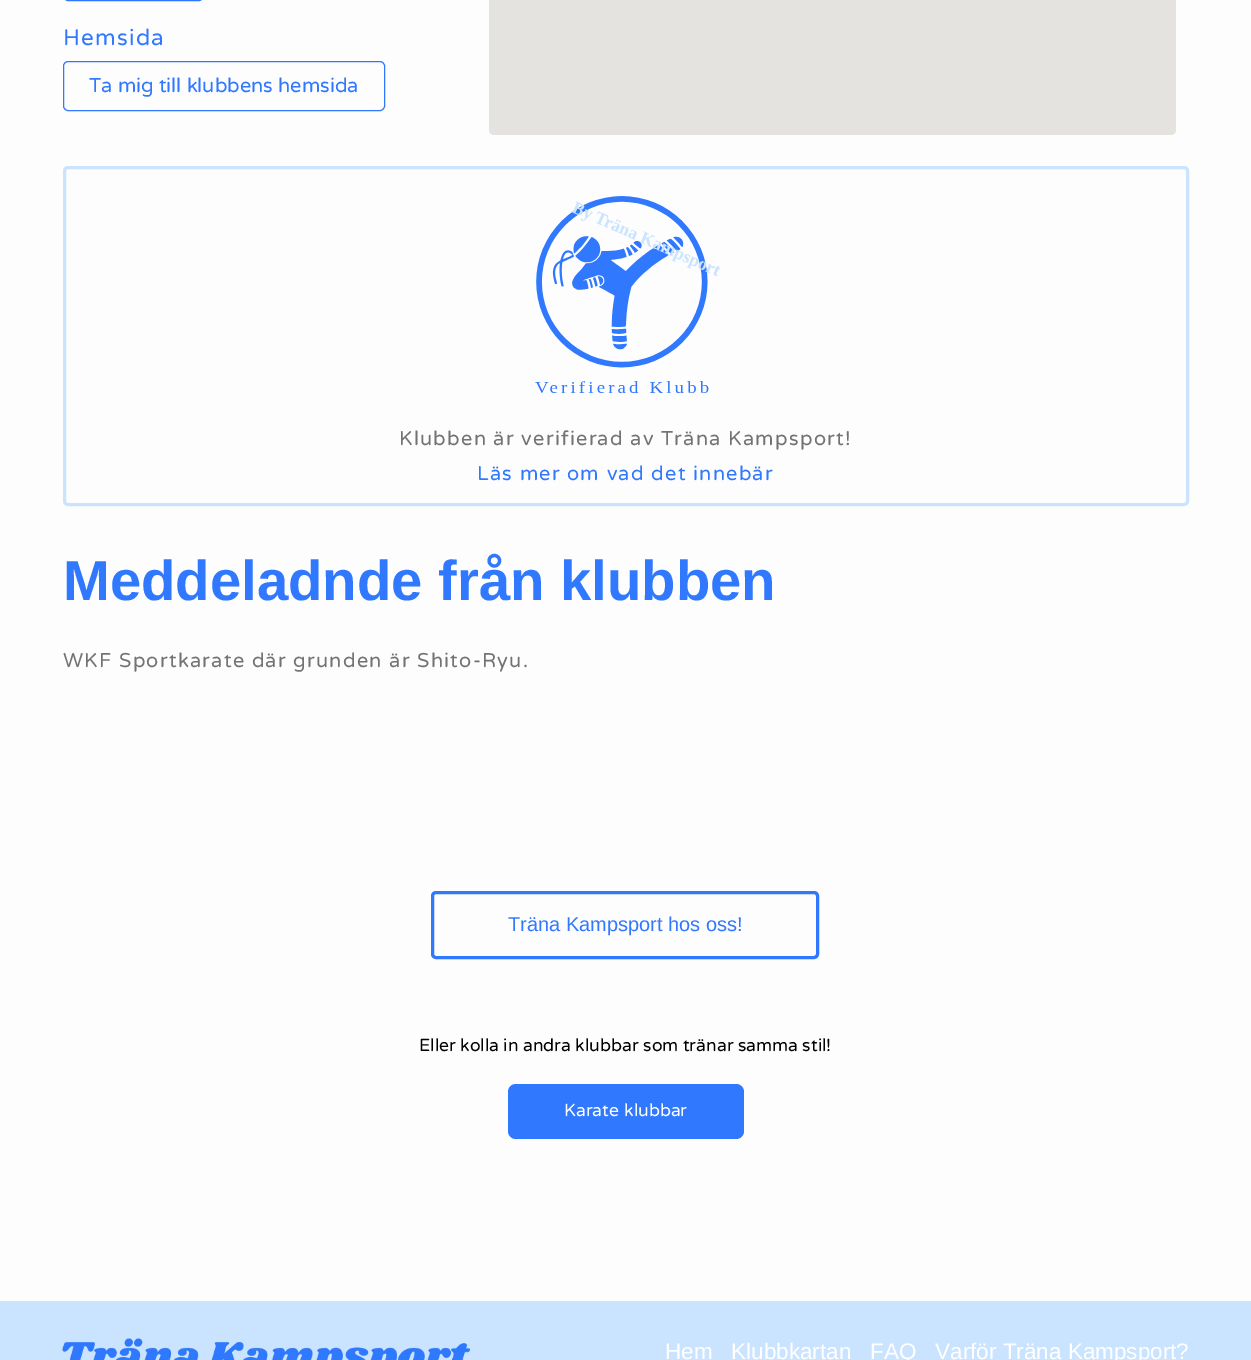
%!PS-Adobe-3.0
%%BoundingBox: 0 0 1251 1360
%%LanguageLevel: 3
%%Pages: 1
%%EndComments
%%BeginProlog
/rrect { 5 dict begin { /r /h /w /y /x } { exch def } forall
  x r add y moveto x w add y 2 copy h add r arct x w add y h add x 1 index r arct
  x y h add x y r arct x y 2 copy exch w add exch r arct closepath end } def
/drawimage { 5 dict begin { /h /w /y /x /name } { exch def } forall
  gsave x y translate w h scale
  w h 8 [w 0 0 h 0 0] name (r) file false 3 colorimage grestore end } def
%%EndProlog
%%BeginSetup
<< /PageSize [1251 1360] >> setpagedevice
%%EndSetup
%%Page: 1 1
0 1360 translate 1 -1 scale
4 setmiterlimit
0.992 setgray
0 0 1251 1360 rectfill
0.188 0.475 1 setrgbcolor
63.5 -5.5 140 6 4.5 rrect stroke
63.5 61.5 321 49 4.5 rrect stroke
0.898 0.89 0.875 setrgbcolor
489 -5 687 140 5 rrect fill
0.792 0.894 1 setrgbcolor
3 setlinewidth
64.5 167.5 1123 337 3.5 rrect stroke
(images/1.raw) 535 196 186 197 drawimage
0.188 0.475 1 setrgbcolor
432.5 892.5 385 65 3.5 rrect stroke
508 1084 236 55 8 rrect fill
0.792 0.894 1 setrgbcolor
0 1301 1251 59 rectfill
(images/2.raw) 62 1338 408 22 drawimage
/VarelaRound-Regular [22.5 0 0 -22.5 0 0] selectfont
0.188 0.475 1 setrgbcolor
63 45 moveto 1.25 0 (Hemsida) ashow
/VarelaRound-Regular [20 0 0 -20 0 0] selectfont
89 92 moveto (Ta mig till klubbens hemsida) show
0.451 setgray
399 445 moveto 1.25 0 (Klubben är verifierad av Träna Kampsport!) ashow
0.188 0.475 1 setrgbcolor
477 480 moveto 1.25 0 (Läs mer om vad det innebär) ashow
/LiberationSans-Bold [56.25 0 0 -56.25 0 0] selectfont
63 600 moveto (Meddeladnde från klubben) show
/VarelaRound-Regular [20 0 0 -20 0 0] selectfont
0.451 setgray
63 667 moveto 1.25 0 (WKF Sportkarate där grunden är Shito-Ryu.) ashow
/LiberationSans-Regular [20 0 0 -20 0 0] selectfont
0.188 0.475 1 setrgbcolor
508 931 moveto (Träna Kampsport hos oss!) show
/VarelaRound-Regular [17.5 0 0 -17.5 0 0] selectfont
0 setgray
419 1051 moveto (Eller kolla in andra klubbar som tränar samma stil!) show
1 setgray
564 1116 moveto (Karate) show
624 1116 moveto (klubbar) show
/LiberationSans-Regular [22.5 0 0 -22.5 0 0] selectfont
665 1359 moveto (Hem) show
731 1359 moveto (Klubbkartan) show
870 1359 moveto (FAQ) show
935 1359 moveto (Varför Träna Kampsport?) show
showpage
%%EOF
